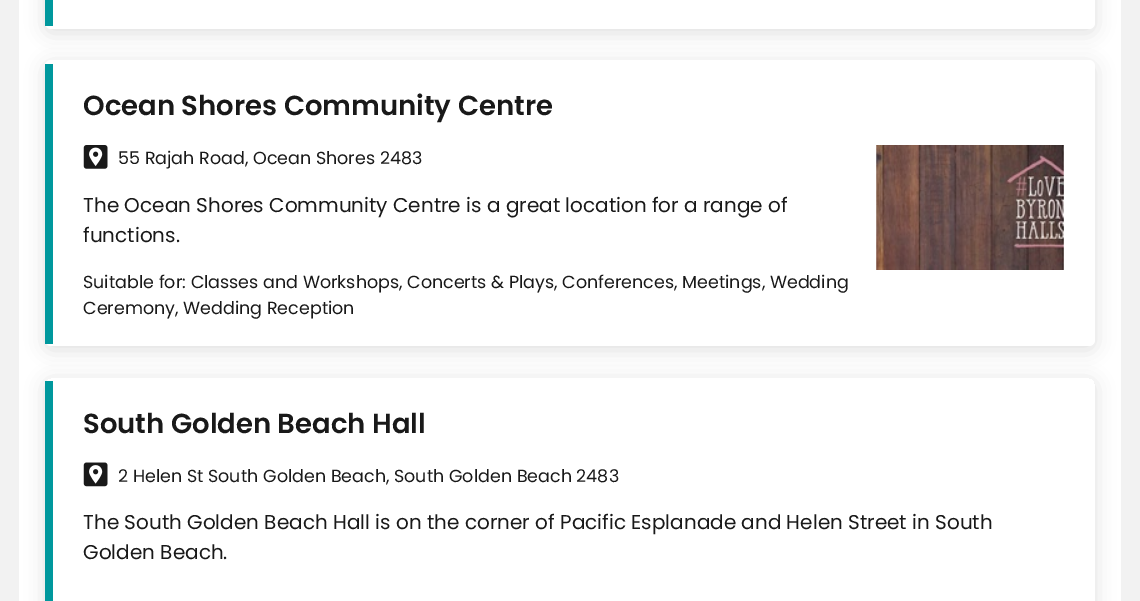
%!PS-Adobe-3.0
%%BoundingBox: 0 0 1140 601
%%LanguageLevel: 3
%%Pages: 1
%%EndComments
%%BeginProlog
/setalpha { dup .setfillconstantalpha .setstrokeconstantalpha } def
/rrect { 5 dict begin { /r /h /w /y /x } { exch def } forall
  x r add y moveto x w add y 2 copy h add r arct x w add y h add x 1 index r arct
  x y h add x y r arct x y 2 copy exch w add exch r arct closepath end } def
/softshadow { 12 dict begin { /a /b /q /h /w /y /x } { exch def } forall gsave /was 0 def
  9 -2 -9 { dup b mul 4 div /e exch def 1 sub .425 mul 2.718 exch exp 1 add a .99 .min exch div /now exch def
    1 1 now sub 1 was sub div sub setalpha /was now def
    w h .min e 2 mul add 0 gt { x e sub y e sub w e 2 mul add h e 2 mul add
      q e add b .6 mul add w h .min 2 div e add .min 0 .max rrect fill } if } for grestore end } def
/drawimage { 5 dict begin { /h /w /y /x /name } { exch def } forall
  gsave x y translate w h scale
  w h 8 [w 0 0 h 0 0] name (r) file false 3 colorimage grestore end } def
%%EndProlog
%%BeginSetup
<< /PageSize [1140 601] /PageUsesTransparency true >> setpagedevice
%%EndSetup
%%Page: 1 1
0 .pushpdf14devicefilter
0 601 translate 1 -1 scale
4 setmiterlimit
0.949 setgray
0 0 1140 601 rectfill
1 setgray
19 0 1102 601 rectfill
0.157 setgray
45 -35 1050 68 6 9.5 0.15 softshadow
1 setgray
45 -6 1050 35 6 rrect fill
0 0.596 0.616 setrgbcolor
45 0 8 26 rectfill
0.157 setgray
45 64 1050 286 6 9.5 0.15 softshadow
1 setgray
45 60 1050 286 6 rrect fill
0 0.596 0.616 setrgbcolor
45 64 8 280 rectfill
(images/1.raw) 83 145 25 24 drawimage
(images/2.raw) 876 145 188 125 drawimage
gsave
newpath 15 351 moveto 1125 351 lineto 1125 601 lineto 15 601 lineto closepath 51 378 moveto 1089 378 lineto 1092.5 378 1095 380.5 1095 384 curveto 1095 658 lineto 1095 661.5 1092.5 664 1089 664 curveto 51 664 lineto 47.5 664 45 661.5 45 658 curveto 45 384 lineto 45 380.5 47.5 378 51 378 curveto closepath eoclip newpath
0.157 setgray
45 381 1050 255 6 9.5 0.15 softshadow
grestore
45 381 8 220 rectfill
(images/3.raw) 83 462 25 25 drawimage
/Poppins-SemiBold [27.5 0 0 -27.5 0 0] selectfont
0.098 setgray
83 115 moveto (Ocean Shores Community Centre) show
/Poppins-Regular [17.5 0 0 -17.5 0 0] selectfont
118 164 moveto (55 Rajah Road, Ocean Shores 2483) show
/Poppins-Regular [20 0 0 -20 0 0] selectfont
83 212 moveto (The Ocean Shores Community Centre is a great location for a range of) show
83 242 moveto (functions.) show
/Poppins-Regular [17.5 0 0 -17.5 0 0] selectfont
83 288 moveto (Suitable for: Classes and Workshops, Concerts & Plays, Conferences, Meetings, Wedding) show
83 314 moveto (Ceremony, Wedding Reception) show
/Poppins-SemiBold [27.5 0 0 -27.5 0 0] selectfont
83 433 moveto (South Golden Beach Hall) show
/Poppins-Regular [17.5 0 0 -17.5 0 0] selectfont
118 482 moveto (2 Helen St South Golden Beach, South Golden Beach 2483) show
/Poppins-Regular [20 0 0 -20 0 0] selectfont
83 529 moveto (The South Golden Beach Hall is on the corner of Pacific Esplanade and Helen Street in South) show
83 559 moveto (Golden Beach.) show
.poppdf14devicefilter showpage
%%EOF
